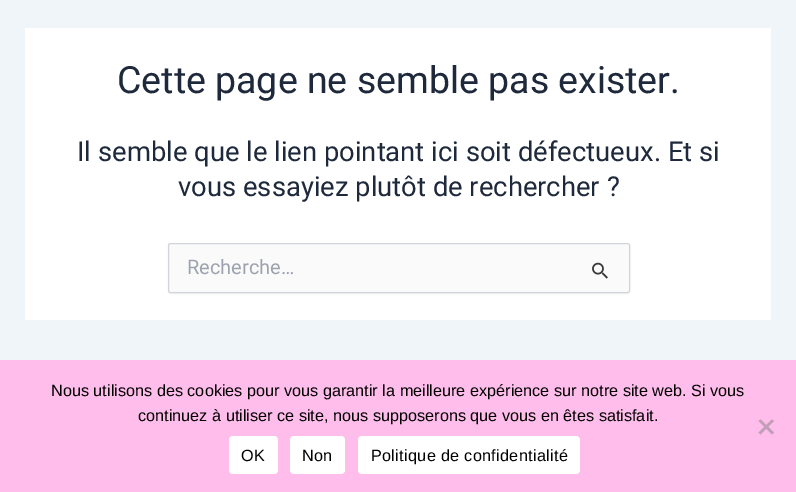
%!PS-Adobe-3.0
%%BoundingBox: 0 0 796 492
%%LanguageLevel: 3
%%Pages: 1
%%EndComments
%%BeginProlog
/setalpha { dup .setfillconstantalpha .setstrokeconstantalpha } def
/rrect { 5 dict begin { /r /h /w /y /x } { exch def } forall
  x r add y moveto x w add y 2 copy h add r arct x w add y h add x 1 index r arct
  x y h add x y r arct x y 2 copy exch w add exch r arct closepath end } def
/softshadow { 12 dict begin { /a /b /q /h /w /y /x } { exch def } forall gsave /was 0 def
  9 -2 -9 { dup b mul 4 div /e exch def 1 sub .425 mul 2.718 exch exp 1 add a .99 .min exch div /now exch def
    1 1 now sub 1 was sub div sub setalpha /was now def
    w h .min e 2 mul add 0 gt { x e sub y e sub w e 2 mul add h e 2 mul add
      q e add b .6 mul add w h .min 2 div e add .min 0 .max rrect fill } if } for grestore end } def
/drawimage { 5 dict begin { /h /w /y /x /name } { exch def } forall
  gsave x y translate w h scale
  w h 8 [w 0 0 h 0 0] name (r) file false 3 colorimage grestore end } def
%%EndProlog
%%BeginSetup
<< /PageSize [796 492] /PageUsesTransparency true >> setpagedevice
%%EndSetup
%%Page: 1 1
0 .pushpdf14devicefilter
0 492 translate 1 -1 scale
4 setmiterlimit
0.941 0.961 0.98 setrgbcolor
0 0 796 492 rectfill
1 setgray
25 28 746 292 rectfill
0 setgray
168 244 462 50 2.5 1 0.05 softshadow
0.98 setgray
168.5 243.5 461 49 2 rrect gsave fill grestore
0.82 0.835 0.859 setrgbcolor
stroke
(images/1.raw) 592 262 16 17 drawimage
1 0.741 0.922 setrgbcolor
0 360 796 132 rectfill
0.753 0.624 0.714 setrgbcolor
newpath 772 419.5 moveto 774 421 lineto 760.5 434.5 lineto 758.5 432.5 lineto closepath fill
newpath 758.5 421 moveto 760.5 419.5 lineto 774 432.5 lineto 772 434.5 lineto closepath fill
1 setgray
229 436 49 38 4 rrect fill
290 436 55 38 4 rrect fill
358 436 222 38 4 rrect fill
/Roboto-Regular [37.5 0 0 -37.5 0 0] selectfont
0.118 0.161 0.231 setrgbcolor
117 93 moveto (Cette page ne semble pas exister.) show
/Roboto-Regular [27.4 0 0 -27.4 0 0] selectfont
77 161 moveto (Il semble que le lien pointant ici soit défectueux. Et si) show
178 196 moveto (vous essayiez plutôt de rechercher ?) show
/Roboto-Regular [20 0 0 -20 0 0] selectfont
0.612 0.639 0.686 setrgbcolor
187 274 moveto (Recherche…) show
/LiberationSans-Regular [16.25 0 0 -16.25 0 0] selectfont
0 setgray
51 396 moveto (Nous utilisons des cookies pour vous garantir la meilleure expérience sur notre site web. Si vous) show
138 421 moveto (continuez à utiliser ce site, nous supposerons que vous en êtes satisfait.) show
241 461 moveto 0.3 0 (OK) ashow
302 461 moveto 0.3 0 (Non) ashow
371 461 moveto 0.3 0 (Politique de confidentialité) ashow
.poppdf14devicefilter showpage
%%EOF
